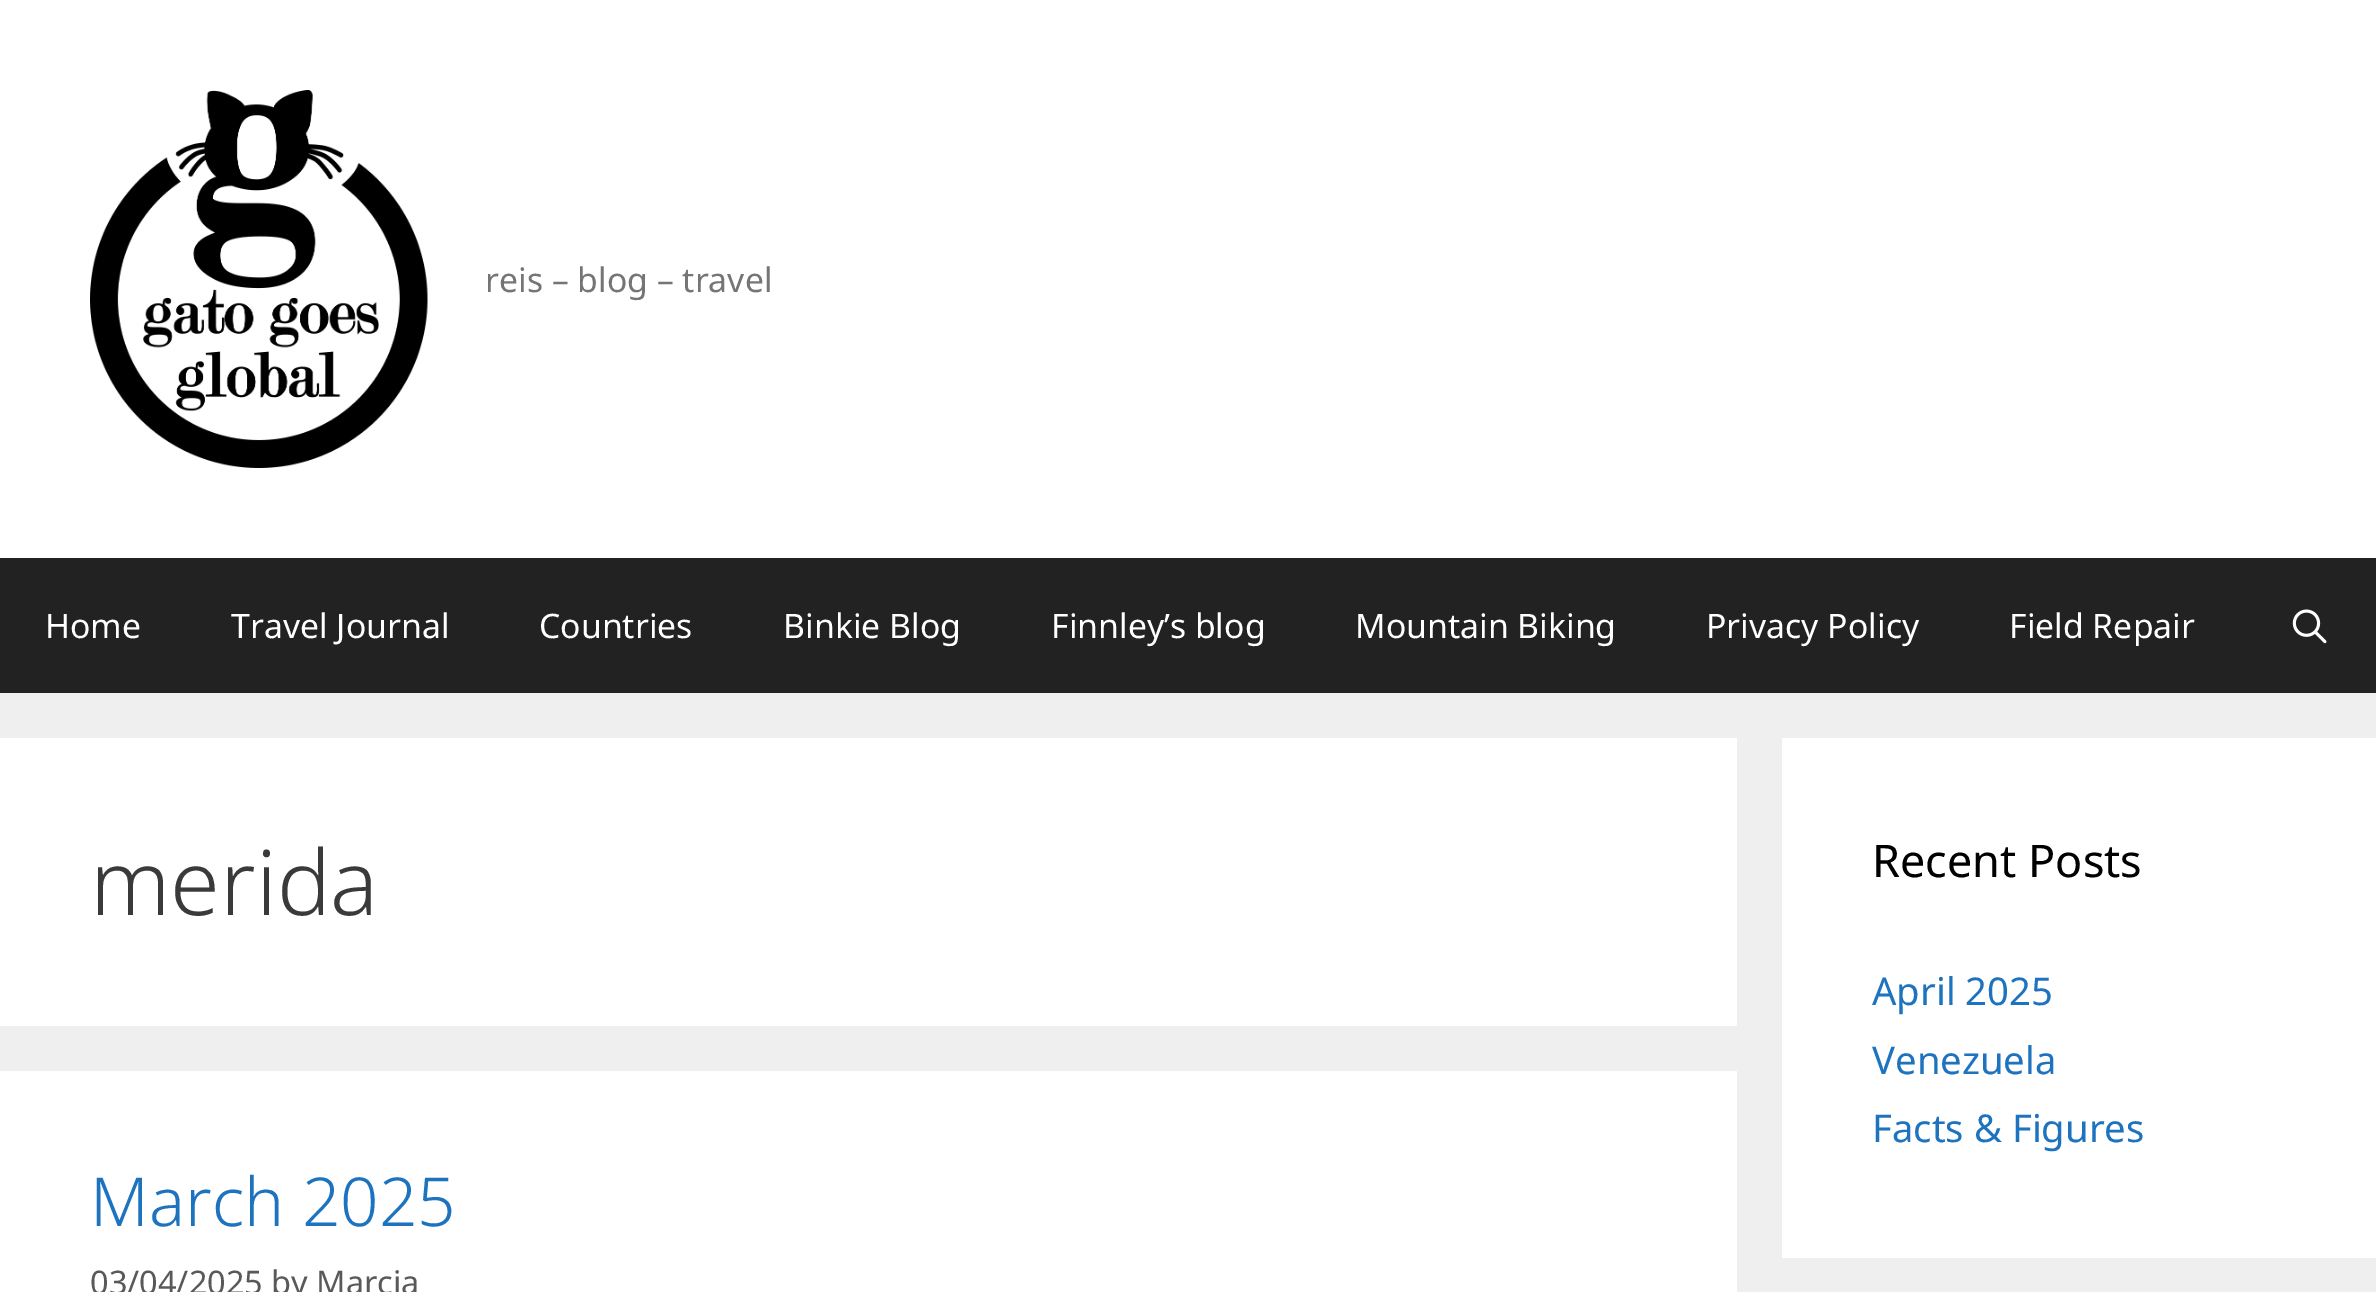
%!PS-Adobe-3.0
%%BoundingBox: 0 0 2376 1292
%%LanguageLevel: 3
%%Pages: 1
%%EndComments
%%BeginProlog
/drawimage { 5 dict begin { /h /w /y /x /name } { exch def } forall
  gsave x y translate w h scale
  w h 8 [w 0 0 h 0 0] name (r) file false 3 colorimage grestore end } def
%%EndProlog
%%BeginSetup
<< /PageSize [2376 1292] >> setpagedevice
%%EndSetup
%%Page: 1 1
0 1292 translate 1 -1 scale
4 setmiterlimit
0.937 setgray
0 0 2376 1292 rectfill
1 setgray
0 0 2376 558 rectfill
(images/1.raw) 90 90 338 378 drawimage
0.133 setgray
0 558 2376 135 rectfill
(images/2.raw) 2292 609 35 35 drawimage
1 setgray
0 738 1737 288 rectfill
0 1071 1737 221 rectfill
1782 738 594 520 rectfill
/NotoSans-Regular [33.75 0 0 -33.75 0 0] selectfont
0.459 setgray
485 292 moveto (reis – blog – travel) show
1 setgray
45 638 moveto (Home) show
231 638 moveto (Travel Journal) show
539 638 moveto (Countries) show
783 638 moveto (Binkie Blog) show
1051 638 moveto (Finnley’s blog) show
1355 638 moveto (Mountain Biking) show
1706 638 moveto (Privacy Policy) show
2009 638 moveto (Field Repair) show
/NotoSans-Light [90 0 0 -90 0 0] selectfont
0.227 setgray
90 915 moveto (merida) show
/NotoSans-Light [67.5 0 0 -67.5 0 0] selectfont
0.118 0.451 0.745 setrgbcolor
90 1226 moveto (March 2025) show
/NotoSans-Regular [32.5 0 0 -32.5 0 0] selectfont
0.349 setgray
90 1294 moveto (03/04/2025 by Marcia) show
/NotoSans-Regular [45 0 0 -45 0 0] selectfont
0 setgray
1872 877 moveto (Recent Posts) show
/NotoSans-Regular [38.25 0 0 -38.25 0 0] selectfont
0.118 0.451 0.745 setrgbcolor
1872 1005 moveto (April 2025) show
1872 1074 moveto (Venezuela) show
1872 1142 moveto (Facts & Figures) show
showpage
%%EOF
